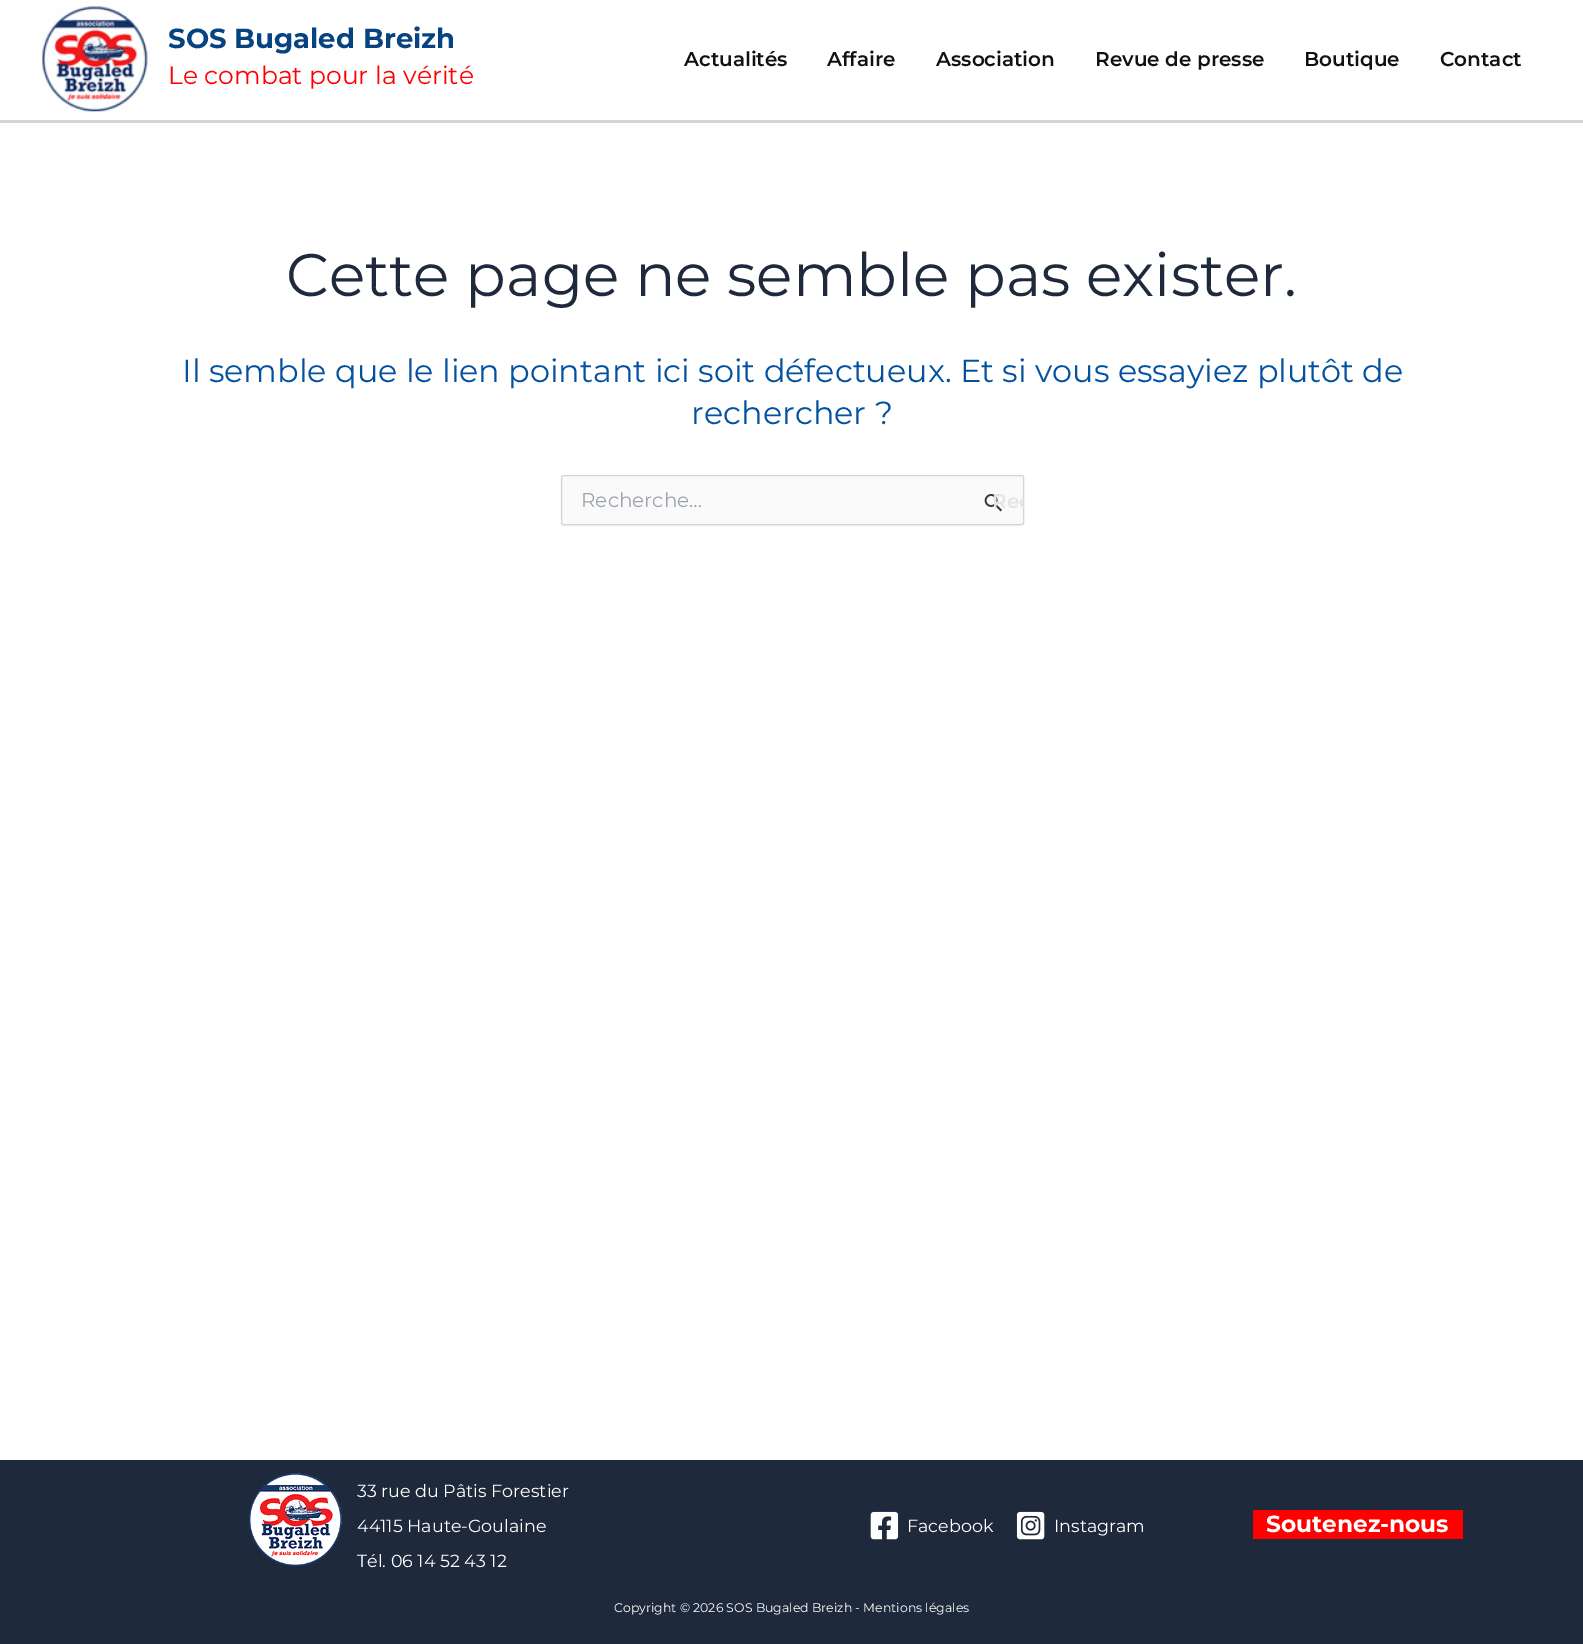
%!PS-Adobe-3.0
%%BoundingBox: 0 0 1583 1644
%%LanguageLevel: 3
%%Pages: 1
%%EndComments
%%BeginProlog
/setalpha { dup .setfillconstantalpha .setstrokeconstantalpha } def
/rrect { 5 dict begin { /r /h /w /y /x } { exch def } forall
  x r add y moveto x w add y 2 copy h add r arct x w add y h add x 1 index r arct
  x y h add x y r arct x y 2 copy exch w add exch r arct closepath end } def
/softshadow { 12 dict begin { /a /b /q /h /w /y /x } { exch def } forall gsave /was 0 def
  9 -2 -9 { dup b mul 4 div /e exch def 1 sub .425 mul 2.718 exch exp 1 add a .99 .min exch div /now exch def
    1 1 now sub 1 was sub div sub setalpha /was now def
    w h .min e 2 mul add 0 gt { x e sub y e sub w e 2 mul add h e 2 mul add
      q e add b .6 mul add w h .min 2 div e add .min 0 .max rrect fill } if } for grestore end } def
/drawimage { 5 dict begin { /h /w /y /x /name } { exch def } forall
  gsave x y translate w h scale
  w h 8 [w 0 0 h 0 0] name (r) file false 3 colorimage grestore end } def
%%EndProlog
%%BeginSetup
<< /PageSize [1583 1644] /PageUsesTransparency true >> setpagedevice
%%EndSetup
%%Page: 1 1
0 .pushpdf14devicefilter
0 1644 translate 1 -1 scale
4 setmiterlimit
1 setgray
0 0 1583 1644 rectfill
0.816 0.835 0.859 setrgbcolor
0 120 1583 3 rectfill
(images/1.raw) 42 6 106 106 drawimage
0 setgray
561 476 463 50 2.5 1 0.05 softshadow
0.98 setgray
561.5 475.5 462 49 2 rrect gsave fill grestore
0.82 0.835 0.859 setrgbcolor
stroke
(images/2.raw) 984 494 18 18 drawimage
0.118 0.161 0.231 setrgbcolor
0 1460 1583 184 rectfill
(images/3.raw) 248 1473 94 94 drawimage
(images/4.raw) 870 1511 29 29 drawimage
(images/5.raw) 1016 1511 29 29 drawimage
1 0 0 setrgbcolor
1253 1510 210 29 rectfill
/Montserrat-Bold [27.5 0 0 -27.5 0 0] selectfont
0.024 0.263 0.502 setrgbcolor
168 48 moveto (SOS Bugaled Breizh) show
/Montserrat-Regular [25 0 0 -25 0 0] selectfont
1 0 0 setrgbcolor
168 84 moveto (Le combat pour la vérité) show
/Montserrat-SemiBold [20 0 0 -20 0 0] selectfont
0.067 setgray
684 66 moveto (Actualités) show
827 66 moveto (Affaire) show
936 66 moveto (Association) show
1095 66 moveto (Revue de presse) show
1304 66 moveto (Boutique) show
1440 66 moveto (Contact) show
/Montserrat-Regular [60 0 0 -60 0 0] selectfont
0.118 0.161 0.231 setrgbcolor
286 296 moveto (Cette page ne semble pas exister.) show
/Montserrat-Regular [31.9 0 0 -31.9 0 0] selectfont
0.016 0.318 0.624 setrgbcolor
182 382 moveto (Il semble que le lien pointant ici soit défectueux. Et si vous essayiez plutôt de) show
691 424 moveto (rechercher ?) show
/Montserrat-Regular [20 0 0 -20 0 0] selectfont
0.612 0.639 0.686 setrgbcolor
581 507 moveto (Recherche…) show
gsave
968 475 56 53 2.5 rrect clip newpath
/Montserrat-SemiBold [20 0 0 -20 0 0] selectfont
0.898 setgray
992 508 moveto (Rec) show
grestore
/Montserrat-Regular [17.5 0 0 -17.5 0 0] selectfont
1 setgray
357 1497 moveto (33 rue du Pâtis Forestier) show
357 1532 moveto (44115 Haute-Goulaine) show
357 1567 moveto (Tél. 06 14 52 43 12) show
907 1532 moveto (Facebook) show
1054 1532 moveto (Instagram) show
/Montserrat-Bold [23.25 0 0 -23.25 0 0] selectfont
1266 1532 moveto (Soutenez-nous) show
/Montserrat-Regular [12.5 0 0 -12.5 0 0] selectfont
614 1612 moveto (Copyright © 2026 SOS Bugaled Breizh - Mentions légales) show
.poppdf14devicefilter showpage
%%EOF
